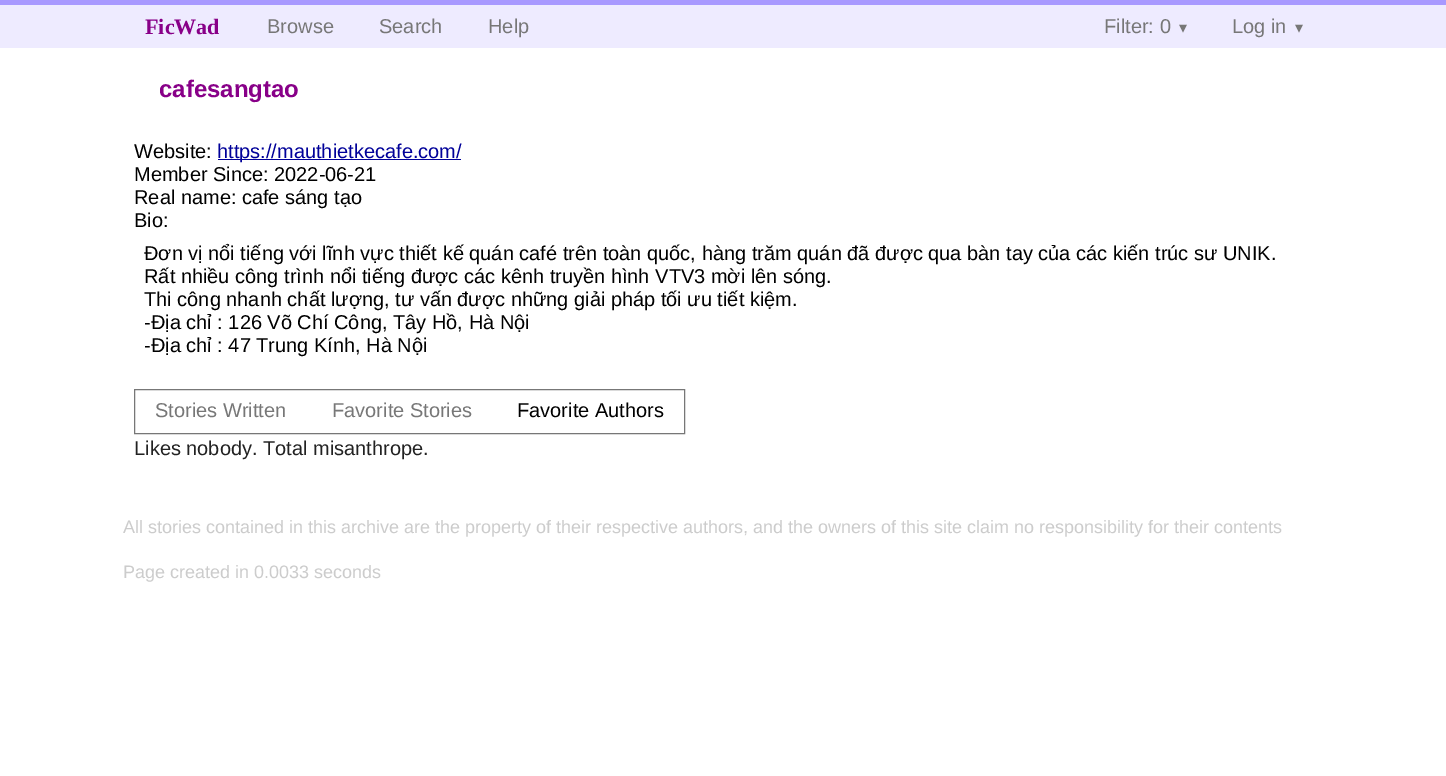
%!PS-Adobe-3.0
%%BoundingBox: 0 0 1446 776
%%LanguageLevel: 3
%%Pages: 1
%%EndComments
%%BeginProlog
%%EndProlog
%%BeginSetup
<< /PageSize [1446 776] >> setpagedevice
%%EndSetup
%%Page: 1 1
0 776 translate 1 -1 scale
4 setmiterlimit
1 setgray
0 0 1446 776 rectfill
0.933 0.922 1 setrgbcolor
0 5 1446 43 rectfill
0.659 0.6 1 setrgbcolor
0 0 1446 5 rectfill
0 0 0.6 setrgbcolor
218 159 243 1 rectfill
0.467 setgray
134.5 389.5 550 44 rectstroke
/LiberationSerif-Bold [22 0 0 -22 0 0] selectfont
0.533 0 0.533 setrgbcolor
145 34 moveto (FicWad) show
/LiberationSans-Regular [20 0 0 -20 0 0] selectfont
0.467 setgray
267 33 moveto (Browse) show
379 33 moveto (Search) show
488 33 moveto (Help) show
1104 33 moveto (Filter: 0) show
/DejaVuSans-Regular [16 0 0 -16 0 0] selectfont
1179 33 moveto (▾) show
/LiberationSans-Regular [20 0 0 -20 0 0] selectfont
1232 33 moveto (Log in) show
/DejaVuSans-Regular [16 0 0 -16 0 0] selectfont
1295 33 moveto (▾) show
/LiberationSans-Bold [24 0 0 -24 0 0] selectfont
0.533 0 0.533 setrgbcolor
159 97 moveto (cafesangtao) show
/LiberationSans-Regular [20 0 0 -20 0 0] selectfont
0 setgray
134 158 moveto (Website:) show
0 0 0.6 setrgbcolor
217 158 moveto (https://mauthietkecafe.com/) show
0 setgray
134 181 moveto (Member Since: 2022-06-21) show
134 204 moveto (Real name: cafe sáng tạo) show
134 227 moveto (Bio:) show
144 260 moveto (Đơn vị nổi tiếng với lĩnh vực thiết kế quán café trên toàn quốc, hàng trăm quán đã được qua bàn tay của các kiến trúc sư UNIK.) show
144 283 moveto (Rất nhiều công trình nổi tiếng được các kênh truyền hình VTV3 mời lên sóng.) show
144 306 moveto (Thi công nhanh chất lượng, tư vấn được những giải pháp tối ưu tiết kiệm.) show
144 329 moveto (-Địa chỉ : 126 Võ Chí Công, Tây Hồ, Hà Nội) show
144 352 moveto (-Địa chỉ : 47 Trung Kính, Hà Nội) show
0.467 setgray
155 417 moveto (Stories Written) show
332 417 moveto (Favorite Stories) show
0 setgray
517 417 moveto (Favorite Authors) show
0.133 setgray
134 455 moveto (Likes nobody. Total misanthrope.) show
/LiberationSans-Regular [18 0 0 -18 0 0] selectfont
0.8 setgray
123 533 moveto (All stories contained in this archive are the property of their respective authors, and the owners of this site claim no responsibility for their contents) show
123 578 moveto (Page created in 0.0033 seconds) show
showpage
%%EOF
